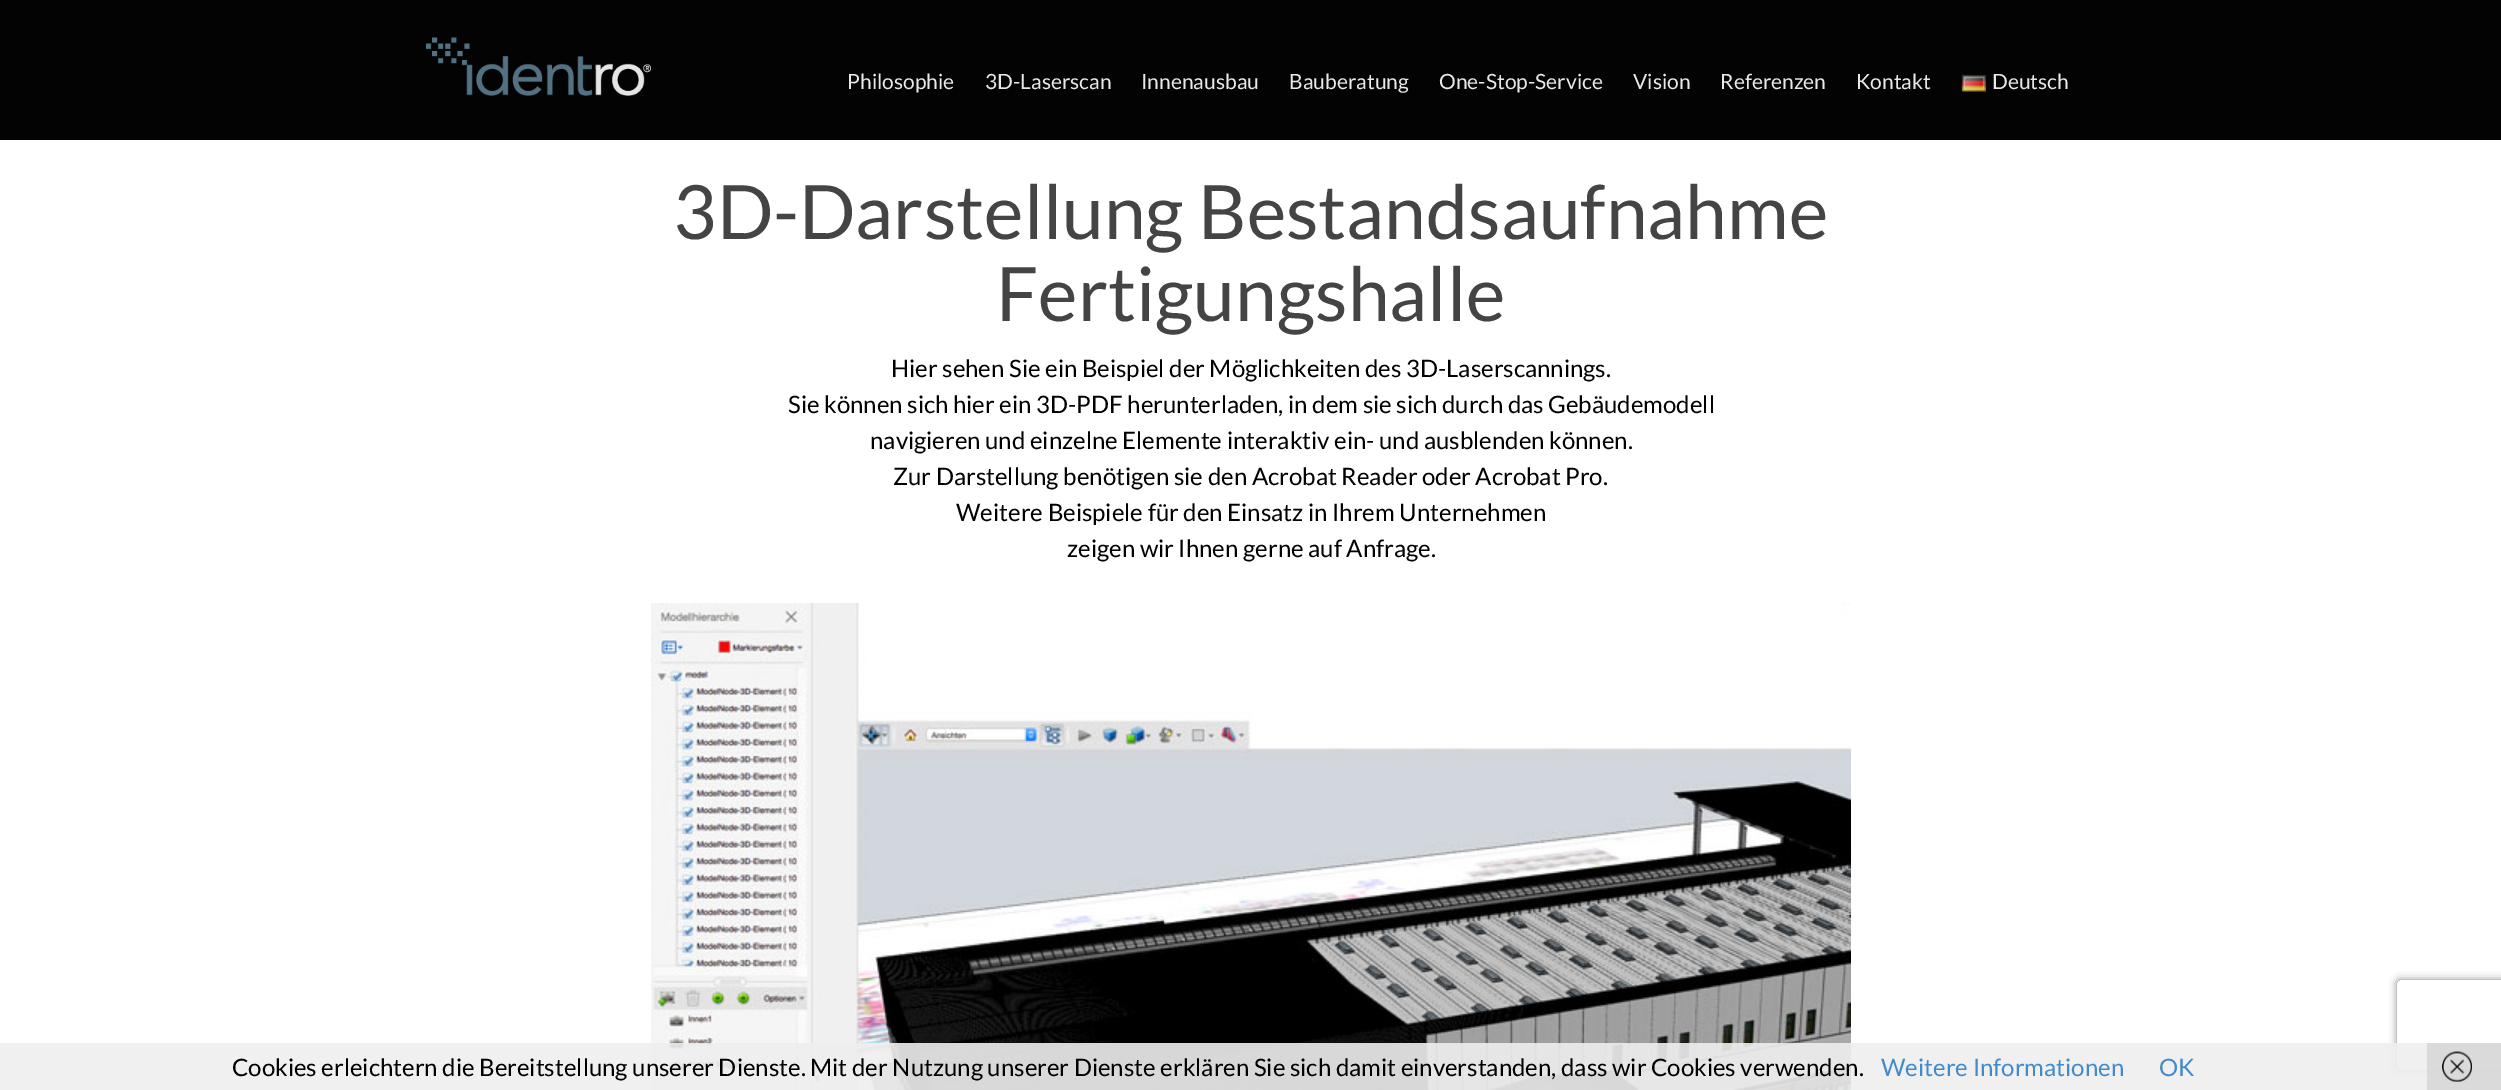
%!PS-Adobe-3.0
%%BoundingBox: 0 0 2501 1090
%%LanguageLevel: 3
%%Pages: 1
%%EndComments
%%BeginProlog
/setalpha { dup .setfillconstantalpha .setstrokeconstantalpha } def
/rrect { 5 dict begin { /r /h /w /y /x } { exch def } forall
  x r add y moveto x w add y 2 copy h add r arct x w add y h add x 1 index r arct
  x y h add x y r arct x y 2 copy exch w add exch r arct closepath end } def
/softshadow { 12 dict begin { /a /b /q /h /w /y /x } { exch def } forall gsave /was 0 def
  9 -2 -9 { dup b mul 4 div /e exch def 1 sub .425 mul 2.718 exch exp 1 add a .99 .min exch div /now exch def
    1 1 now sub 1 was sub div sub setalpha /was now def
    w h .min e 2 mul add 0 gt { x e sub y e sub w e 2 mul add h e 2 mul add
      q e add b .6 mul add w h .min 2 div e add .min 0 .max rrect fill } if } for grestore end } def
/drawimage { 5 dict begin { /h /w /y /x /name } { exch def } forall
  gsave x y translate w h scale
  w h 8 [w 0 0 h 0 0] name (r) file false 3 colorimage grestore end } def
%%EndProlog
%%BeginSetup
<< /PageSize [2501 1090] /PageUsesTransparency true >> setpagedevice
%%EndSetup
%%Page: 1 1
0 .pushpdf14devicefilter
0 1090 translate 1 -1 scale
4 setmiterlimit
1 setgray
0 0 2501 1090 rectfill
0.012 setgray
0 0 2501 140 rectfill
(images/1.raw) 426 37 225 59 drawimage
(images/2.raw) 1961 74 25 18 drawimage
(images/3.raw) 651 603 1200 487 drawimage
gsave
newpath 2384 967 moveto 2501 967 lineto 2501 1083 lineto 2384 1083 lineto closepath 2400 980 moveto 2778 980 lineto 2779.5 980 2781 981.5 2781 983 curveto 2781 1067 lineto 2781 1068.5 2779.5 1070 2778 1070 curveto 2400 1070 lineto 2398.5 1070 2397 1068.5 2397 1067 curveto 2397 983 lineto 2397 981.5 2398.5 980 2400 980 curveto closepath eoclip newpath
0.502 setgray
2397 980 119 90 3 4 1 softshadow
grestore
0.9 setalpha
0.933 setgray
0 1043 2501 47 rectfill
0.6 setalpha
0.8 setgray
2427 1043 74 47 rectfill
1 setalpha
(images/4.raw) 2442 1051 30 31 drawimage
/Lato-Regular [21 0 0 -21 0 0] selectfont
0.914 setgray
847 89 moveto (Philosophie) show
985 89 moveto (3D-Laserscan) show
1141 89 moveto (Innenausbau) show
1289 89 moveto (Bauberatung) show
1439 89 moveto (One-Stop-Service) show
1633 89 moveto (Vision) show
1720 89 moveto (Referenzen) show
1856 89 moveto (Kontakt) show
1992 89 moveto (Deutsch) show
/Lato-Regular [75 0 0 -75 0 0] selectfont
0.267 setgray
673 239 moveto (3D-Darstellung Bestandsaufnahme) show
996 321 moveto (Fertigungshalle) show
/Lato-Regular [24 0 0 -24 0 0] selectfont
0 setgray
891 377 moveto (Hier sehen Sie ein Beispiel der Möglichkeiten des 3D-Laserscannings.) show
788 413 moveto (Sie können sich hier ein 3D-PDF herunterladen, in dem sie sich durch das Gebäudemodell) show
870 449 moveto (navigieren und einzelne Elemente interaktiv ein- und ausblenden können.) show
893 485 moveto (Zur Darstellung benötigen sie den Acrobat Reader oder Acrobat Pro.) show
956 521 moveto (Weitere Beispiele für den Einsatz in Ihrem Unternehmen) show
1067 557 moveto (zeigen wir Ihnen gerne auf Anfrage.) show
232 1076 moveto (Cookies erleichtern die Bereitstellung unserer Dienste. Mit der Nutzung unserer Dienste erklären Sie sich damit einverstanden, dass wir Cookies verwenden.) show
0.259 0.545 0.792 setrgbcolor
1881 1076 moveto (Weitere Informationen) show
2159 1076 moveto (OK) show
.poppdf14devicefilter showpage
%%EOF
